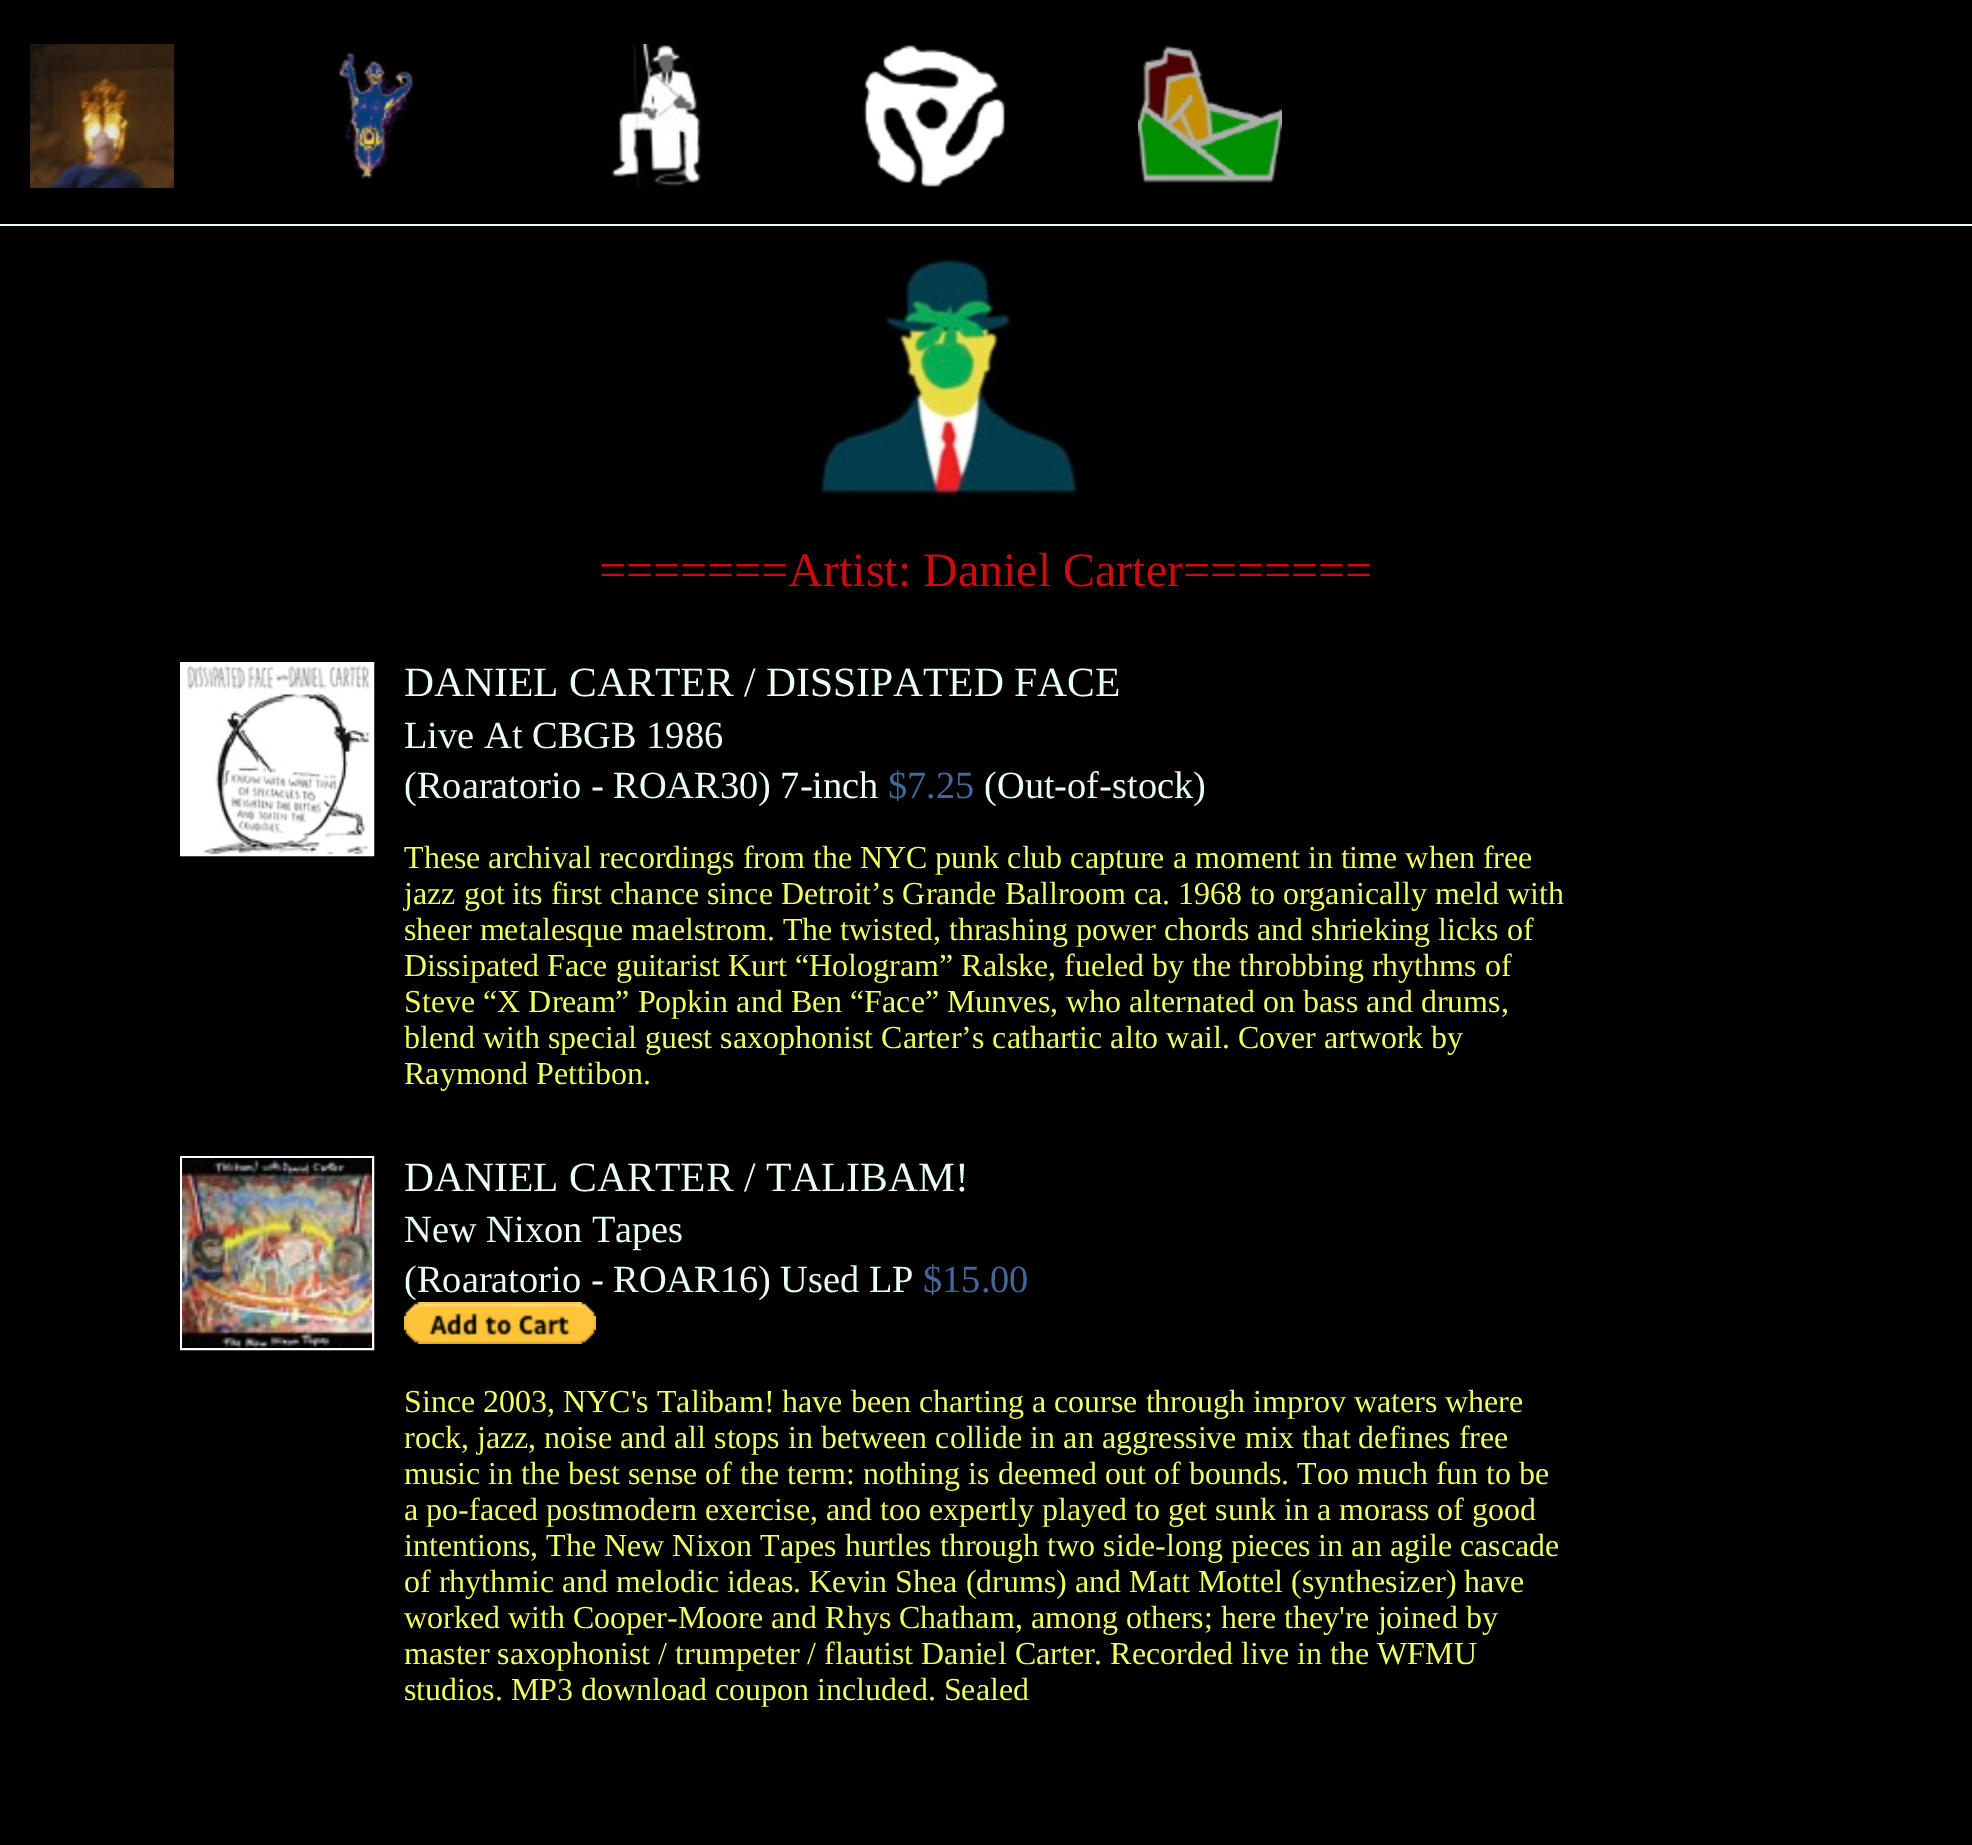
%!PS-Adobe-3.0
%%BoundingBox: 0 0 1972 1845
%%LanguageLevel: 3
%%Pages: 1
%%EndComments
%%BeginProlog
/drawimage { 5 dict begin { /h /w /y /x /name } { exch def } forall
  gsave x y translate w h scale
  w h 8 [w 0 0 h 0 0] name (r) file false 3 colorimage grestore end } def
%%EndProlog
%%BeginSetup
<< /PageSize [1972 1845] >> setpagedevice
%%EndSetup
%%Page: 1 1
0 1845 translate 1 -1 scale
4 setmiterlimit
0 setgray
0 0 1972 1845 rectfill
0.914 1 0.941 setrgbcolor
0 224 1972 2 rectfill
(images/1.raw) 30 44 144 144 drawimage
(images/2.raw) 337 51 79 128 drawimage
(images/3.raw) 611 44 95 144 drawimage
(images/4.raw) 863 45 142 142 drawimage
(images/5.raw) 1138 45 144 138 drawimage
(images/6.raw) 820 257 259 243 drawimage
1 setgray
2 setlinewidth
181 663 192 192 rectstroke
(images/7.raw) 182 664 190 190 drawimage
181 1157 192 192 rectstroke
(images/8.raw) 182 1158 190 190 drawimage
(images/9.raw) 404 1302 192 42 drawimage
/LiberationSerif-Regular [48 0 0 -48 0 0] selectfont
0.788 0.047 0.051 setrgbcolor
599 586 moveto (=======Artist: Daniel Carter=======) show
/LiberationSerif-Regular [41.6 0 0 -41.6 0 0] selectfont
0.914 1 0.941 setrgbcolor
404 696 moveto (DANIEL CARTER / DISSIPATED FACE) show
/LiberationSerif-Regular [38.4 0 0 -38.4 0 0] selectfont
404 748 moveto (Live At CBGB 1986) show
404 798 moveto (\(Roaratorio - ROAR30\) 7-inch) show
0.259 0.404 0.596 setrgbcolor
888 798 moveto ($7.25) show
0.914 1 0.941 setrgbcolor
984 798 moveto (\(Out-of-stock\)) show
/LiberationSerif-Regular [32 0 0 -32 0 0] selectfont
0.949 1 0.384 setrgbcolor
404 868 moveto (These archival recordings from the NYC punk club capture a moment in time when free) show
404 904 moveto (jazz got its first chance since Detroit’s Grande Ballroom ca. 1968 to organically meld with) show
404 940 moveto (sheer metalesque maelstrom. The twisted, thrashing power chords and shrieking licks of) show
404 976 moveto (Dissipated Face guitarist Kurt “Hologram” Ralske, fueled by the throbbing rhythms of) show
404 1012 moveto (Steve “X Dream” Popkin and Ben “Face” Munves, who alternated on bass and drums,) show
404 1048 moveto (blend with special guest saxophonist Carter’s cathartic alto wail. Cover artwork by) show
404 1084 moveto (Raymond Pettibon.) show
/LiberationSerif-Regular [41.6 0 0 -41.6 0 0] selectfont
0.914 1 0.941 setrgbcolor
404 1191 moveto (DANIEL CARTER / TALIBAM!) show
/LiberationSerif-Regular [38.4 0 0 -38.4 0 0] selectfont
404 1242 moveto (New Nixon Tapes) show
404 1292 moveto (\(Roaratorio - ROAR16\) Used LP) show
0.259 0.404 0.596 setrgbcolor
923 1292 moveto ($15.00) show
/LiberationSerif-Regular [32 0 0 -32 0 0] selectfont
0.949 1 0.384 setrgbcolor
404 1412 moveto (Since 2003, NYC's Talibam! have been charting a course through improv waters where) show
404 1448 moveto (rock, jazz, noise and all stops in between collide in an aggressive mix that defines free) show
404 1484 moveto (music in the best sense of the term: nothing is deemed out of bounds. Too much fun to be) show
404 1520 moveto (a po-faced postmodern exercise, and too expertly played to get sunk in a morass of good) show
404 1556 moveto (intentions, The New Nixon Tapes hurtles through two side-long pieces in an agile cascade) show
404 1592 moveto (of rhythmic and melodic ideas. Kevin Shea \(drums\) and Matt Mottel \(synthesizer\) have) show
404 1628 moveto (worked with Cooper-Moore and Rhys Chatham, among others; here they're joined by) show
404 1664 moveto (master saxophonist / trumpeter / flautist Daniel Carter. Recorded live in the WFMU) show
404 1700 moveto (studios. MP3 download coupon included. Sealed) show
showpage
%%EOF
